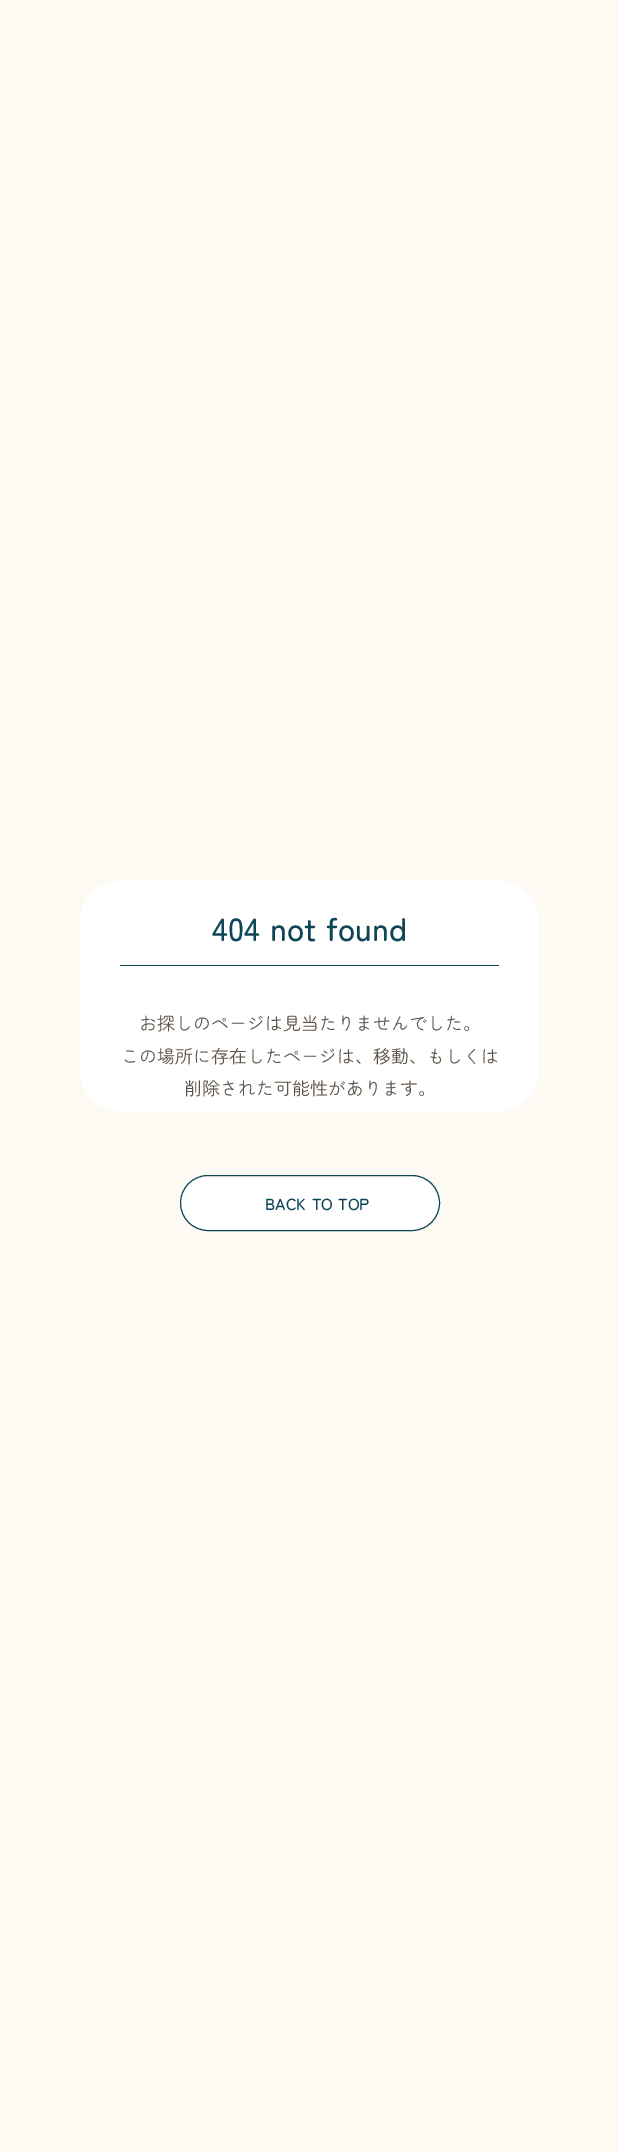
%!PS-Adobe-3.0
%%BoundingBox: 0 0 619 2152
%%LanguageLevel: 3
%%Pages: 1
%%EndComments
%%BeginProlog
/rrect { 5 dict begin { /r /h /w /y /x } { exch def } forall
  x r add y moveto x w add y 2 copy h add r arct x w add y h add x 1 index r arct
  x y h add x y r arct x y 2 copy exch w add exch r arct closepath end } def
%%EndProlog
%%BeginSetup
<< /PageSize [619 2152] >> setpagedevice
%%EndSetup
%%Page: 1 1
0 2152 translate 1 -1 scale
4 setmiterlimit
0.992 0.976 0.953 setrgbcolor
0 0 619 2152 rectfill
1 setgray
80 881 459 230 40 rrect fill
0.051 0.278 0.341 setrgbcolor
120 965 379 1 rectfill
1 setgray
180.5 1175.5 259 55 27.5 rrect gsave fill grestore
0.051 0.278 0.341 setrgbcolor
stroke
/ZenMaruGothic-Medium [32 0 0 -32 0 0] selectfont
212 941 moveto 1 0 32 (404 not found) widthshow
/ZenMaruGothic-Regular [18 0 0 -18 0 0] selectfont
0.361 0.322 0.282 setrgbcolor
139 1030 moveto (お探しのページは見当たりませんでした。) show
121 1063 moveto (この場所に存在したページは、移動、もしくは) show
184 1095 moveto (削除された可能性があります。) show
/ZenMaruGothic-Medium [16 0 0 -16 0 0] selectfont
0.051 0.278 0.341 setrgbcolor
265 1210 moveto 1 0 32 (BACK TO TOP) widthshow
showpage
%%EOF
